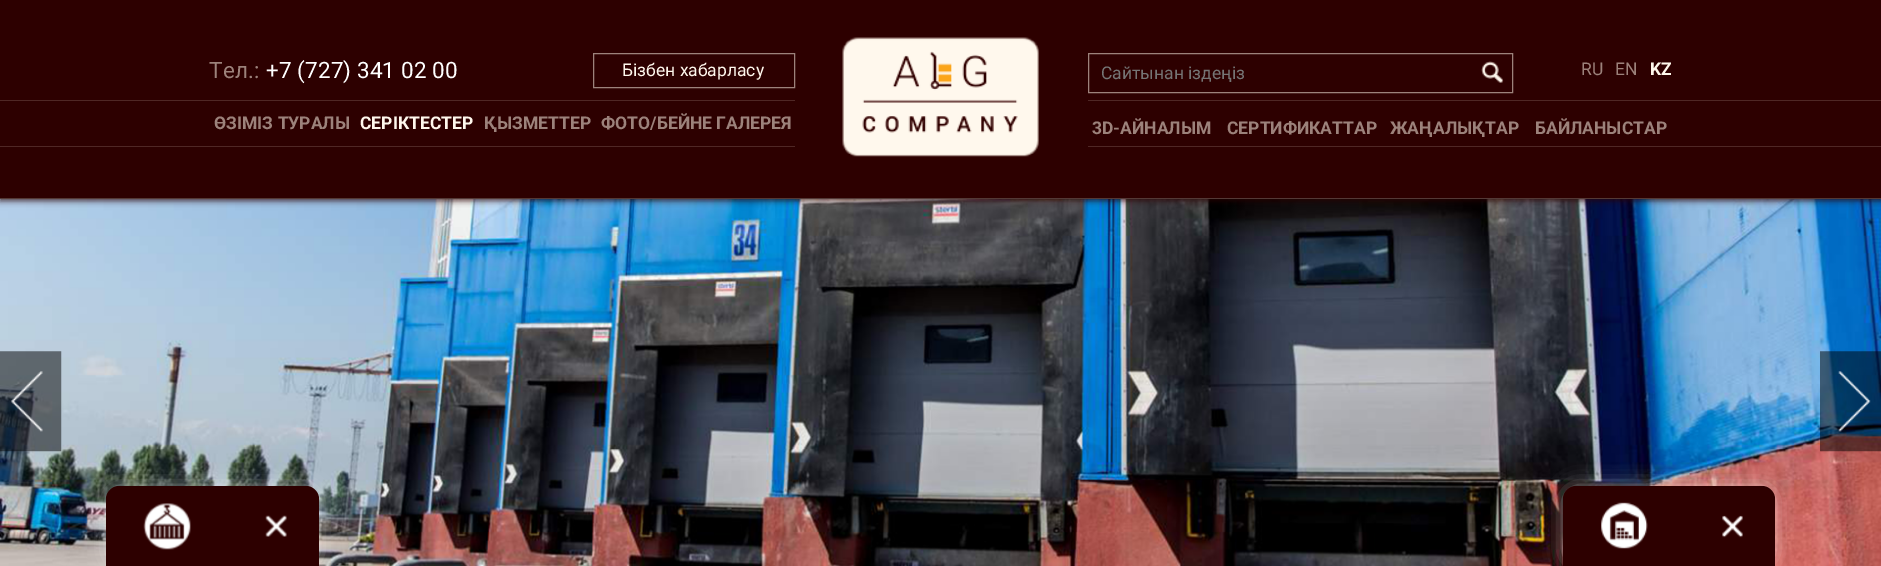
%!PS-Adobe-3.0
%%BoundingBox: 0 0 1881 566
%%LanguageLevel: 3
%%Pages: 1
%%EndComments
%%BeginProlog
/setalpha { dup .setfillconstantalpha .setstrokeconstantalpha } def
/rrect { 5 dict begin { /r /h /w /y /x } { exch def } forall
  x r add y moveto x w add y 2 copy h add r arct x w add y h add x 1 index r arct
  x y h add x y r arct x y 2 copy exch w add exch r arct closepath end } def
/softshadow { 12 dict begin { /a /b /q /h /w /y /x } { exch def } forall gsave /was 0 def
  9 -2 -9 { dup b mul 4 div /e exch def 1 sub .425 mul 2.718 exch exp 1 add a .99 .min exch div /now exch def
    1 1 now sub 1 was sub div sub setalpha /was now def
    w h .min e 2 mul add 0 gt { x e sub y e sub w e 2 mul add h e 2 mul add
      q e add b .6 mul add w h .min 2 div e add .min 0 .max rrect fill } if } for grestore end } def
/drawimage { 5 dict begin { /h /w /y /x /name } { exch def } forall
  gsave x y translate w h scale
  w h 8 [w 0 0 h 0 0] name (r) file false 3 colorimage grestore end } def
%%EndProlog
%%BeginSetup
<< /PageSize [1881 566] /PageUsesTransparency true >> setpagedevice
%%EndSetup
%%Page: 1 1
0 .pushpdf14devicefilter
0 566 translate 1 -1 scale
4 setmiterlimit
1 setgray
0 0 1881 566 rectfill
(images/3.raw) 0 199 1881 367 drawimage
0.176 0 0 setrgbcolor
0 3 1881 198 0 3 0.75 softshadow
0 0 1881 198 rectfill
0.329 0.224 0.212 setrgbcolor
0 198 1881 1 rectfill
0.612 0.51 0.482 setrgbcolor
593.5 53.5 201 34 rectstroke
0.31 0.153 0.145 setrgbcolor
0 100 1881 1 rectfill
0 146 1881 1 rectfill
0.176 0 0 setrgbcolor
795 100 293 47 rectfill
(images/1.raw) 842 37 197 120 drawimage
0.612 0.51 0.482 setrgbcolor
1088.5 53.5 424 39 rectstroke
(images/2.raw) 1481 61 23 22 drawimage
(images/4.raw) 0 351 62 101 drawimage
(images/5.raw) 1820 351 61 101 drawimage
1 setgray
106 486 213 80 13 9.5 0.5 softshadow
0.176 0 0 setrgbcolor
newpath 119 486 moveto 306 486 lineto 313 486 319 492 319 499 curveto 319 566 lineto 106 566 lineto 106 499 lineto 106 492 112 486 119 486 curveto closepath fill
(images/6.raw) 143 503 48 47 drawimage
(images/7.raw) 265 515 22 22 drawimage
1 setgray
1563 486 212 80 13 9.5 0.5 softshadow
0.176 0 0 setrgbcolor
newpath 1576 486 moveto 1762 486 lineto 1769 486 1775 492 1775 499 curveto 1775 566 lineto 1563 566 lineto 1563 499 lineto 1563 492 1569 486 1576 486 curveto closepath fill
(images/8.raw) 1601 502 47 47 drawimage
(images/9.raw) 1722 515 21 23 drawimage
/Roboto-Regular [22.5 0 0 -22.5 0 0] selectfont
0.612 0.51 0.482 setrgbcolor
209 78 moveto 0.1 0 (Тел.:) ashow
1 setgray
266 78 moveto 0.1 0 (+7 \(727\) 341 02 00) ashow
/Roboto-Regular [17.5 0 0 -17.5 0 0] selectfont
1 0.973 0.929 setrgbcolor
622 76 moveto (Бізбен хабарласу) show
/Roboto-Bold [17.5 0 0 -17.5 0 0] selectfont
0.612 0.51 0.482 setrgbcolor
214 129 moveto (ӨЗІМІЗ ТУРАЛЫ) show
1 0.973 0.929 setrgbcolor
360 129 moveto (СЕРІКТЕСТЕР) show
0.612 0.51 0.482 setrgbcolor
484 129 moveto (ҚЫЗМЕТТЕР) show
601 129 moveto (ФОТО/БЕЙНЕ ГАЛЕРЕЯ) show
/Roboto-Regular [17.5 0 0 -17.5 0 0] selectfont
0.459 setgray
1101 79 moveto (Сайтынан іздеңіз) show
0.612 0.51 0.482 setrgbcolor
1581 75 moveto (RU) show
1615 75 moveto (EN) show
/Roboto-Bold [17.5 0 0 -17.5 0 0] selectfont
1 0.973 0.929 setrgbcolor
1650 75 moveto (KZ) show
0.612 0.51 0.482 setrgbcolor
1092 134 moveto (3D-АЙНАЛЫМ) show
1227 134 moveto (СЕРТИФИКАТТАР) show
1390 134 moveto (ЖАҢАЛЫҚТАР) show
1535 134 moveto (БАЙЛАНЫСТАР) show
.poppdf14devicefilter showpage
%%EOF
